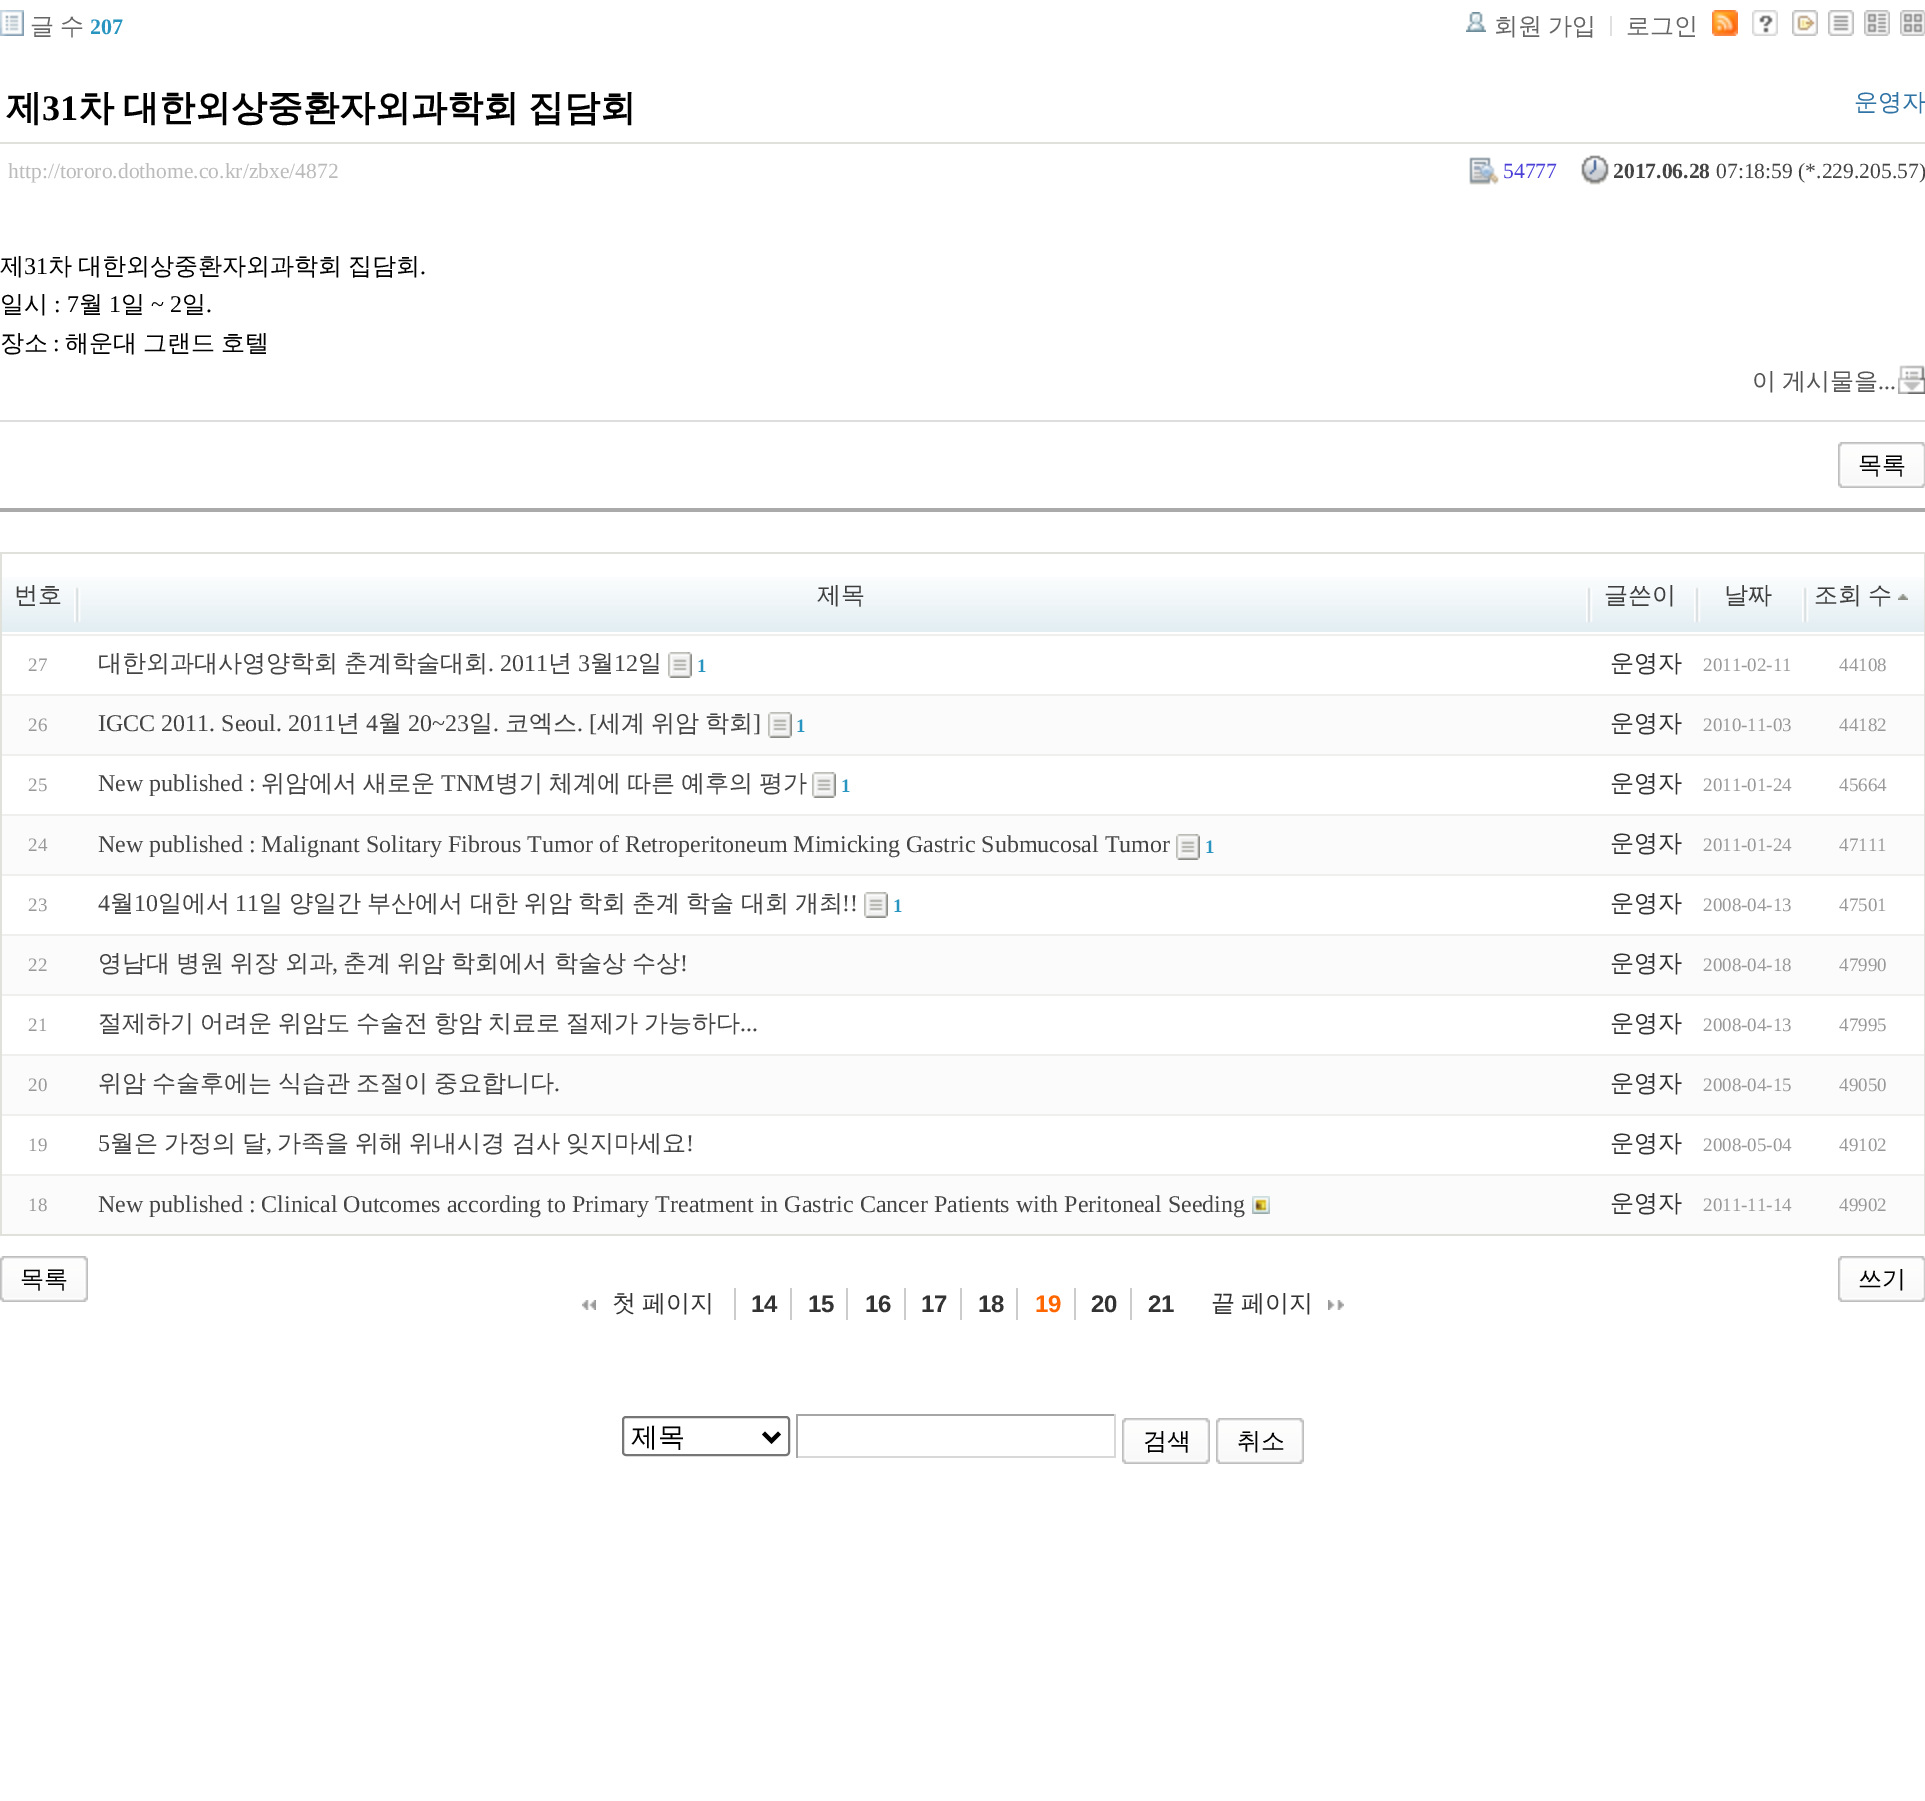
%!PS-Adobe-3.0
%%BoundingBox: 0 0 1925 1801
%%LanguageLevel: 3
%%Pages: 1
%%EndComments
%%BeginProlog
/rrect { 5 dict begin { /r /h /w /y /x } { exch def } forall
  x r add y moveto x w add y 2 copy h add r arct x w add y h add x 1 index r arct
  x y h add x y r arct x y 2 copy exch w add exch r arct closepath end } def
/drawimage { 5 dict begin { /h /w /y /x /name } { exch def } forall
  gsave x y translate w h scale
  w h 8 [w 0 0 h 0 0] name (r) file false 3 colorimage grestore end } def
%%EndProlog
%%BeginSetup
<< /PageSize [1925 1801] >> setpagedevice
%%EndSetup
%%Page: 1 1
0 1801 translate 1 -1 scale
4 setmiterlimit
1 setgray
0 0 1925 1801 rectfill
(images/1.raw) 0 10 24 26 drawimage
(images/2.raw) 1466 12 20 20 drawimage
0.878 setgray
1610 16 2 20 rectfill
(images/3.raw) 1712 10 26 26 drawimage
(images/4.raw) 1752 10 26 26 drawimage
(images/5.raw) 1792 10 26 26 drawimage
(images/6.raw) 1828 10 26 26 drawimage
(images/7.raw) 1864 10 26 26 drawimage
(images/8.raw) 1900 10 25 26 drawimage
0.667 setgray
0 508 1925 4 rectfill
0.878 0.882 0.859 setrgbcolor
0 142 1925 2 rectfill
(images/9.raw) 1469 157 30 28 drawimage
(images/10.raw) 1581 155 28 30 drawimage
(images/11.raw) 1898 365 27 29 drawimage
0.867 setgray
0 420 1925 2 rectfill
(images/12.raw) 1838 442 4 46 drawimage
(images/13.raw) 1842 442 83 46 drawimage
0.878 0.882 0.859 setrgbcolor
1924 552 1 684 rectfill
0 1234 1925 2 rectfill
0 552 2 684 rectfill
(images/14.raw) 2 577 72 55 drawimage
2 552 1922 2 rectfill
(images/15.raw) 74 577 1512 55 drawimage
(images/16.raw) 1586 577 108 55 drawimage
(images/16.raw) 1694 577 108 55 drawimage
(images/17.raw) 1802 577 122 55 drawimage
(images/18.raw) 1898 594 10 6 drawimage
0.937 0.941 0.929 setrgbcolor
2 634 1922 2 rectfill
(images/19.raw) 668 652 24 26 drawimage
0.984 setgray
2 696 1922 58 rectfill
0.937 0.941 0.929 setrgbcolor
2 694 1922 2 rectfill
(images/20.raw) 768 712 24 26 drawimage
2 754 1922 2 rectfill
(images/19.raw) 812 772 24 26 drawimage
0.984 setgray
2 816 1922 58 rectfill
0.937 0.941 0.929 setrgbcolor
2 814 1922 2 rectfill
(images/20.raw) 1176 834 24 26 drawimage
2 874 1922 2 rectfill
(images/19.raw) 864 892 24 26 drawimage
0.984 setgray
2 936 1922 58 rectfill
0.937 0.941 0.929 setrgbcolor
2 934 1922 2 rectfill
2 994 1922 2 rectfill
0.984 setgray
2 1056 1922 58 rectfill
0.937 0.941 0.929 setrgbcolor
2 1054 1922 2 rectfill
2 1114 1922 2 rectfill
0.984 setgray
2 1176 1922 58 rectfill
0.937 0.941 0.929 setrgbcolor
2 1174 1922 2 rectfill
(images/21.raw) 1252 1196 18 18 drawimage
(images/12.raw) 0 1256 4 46 drawimage
(images/22.raw) 4 1256 84 46 drawimage
(images/12.raw) 1838 1256 4 46 drawimage
(images/13.raw) 1842 1256 83 46 drawimage
(images/23.raw) 582 1300 14 10 drawimage
0.8 setgray
734 1288 2 32 rectfill
790 1288 2 32 rectfill
846 1288 2 32 rectfill
904 1288 2 32 rectfill
960 1288 2 32 rectfill
1016 1288 2 32 rectfill
1074 1288 2 32 rectfill
1130 1288 2 32 rectfill
(images/24.raw) 1328 1300 16 10 drawimage
0.463 setgray
2 setlinewidth
623 1417 166 38 3 rrect stroke
0 setgray
4 setlinewidth
newpath 763.5 1433 moveto 771.5 1441 lineto 779.5 1433 lineto stroke
0.651 setgray
796 1414 320 2 rectfill
0.847 setgray
1114 1414 2 44 rectfill
796 1456 320 2 rectfill
0.651 setgray
796 1414 2 44 rectfill
(images/12.raw) 1122 1418 4 46 drawimage
(images/22.raw) 1126 1418 84 46 drawimage
(images/12.raw) 1216 1418 4 46 drawimage
(images/22.raw) 1220 1418 84 46 drawimage
/WenQuanYiZenHei-Medium [24 0 0 -24 0 0] selectfont
0.4 setgray
30 34 moveto -1.25 0 32 (글 수) widthshow
/LiberationSerif-Bold [22 0 0 -22 0 0] selectfont
0.157 0.584 0.753 setrgbcolor
90 34 moveto (207) show
/WenQuanYiZenHei-Medium [24 0 0 -24 0 0] selectfont
0.4 setgray
1494 34 moveto -1.25 0 32 (회원 가입) widthshow
1626 34 moveto (로그인) show
/WenQuanYiZenHei-Bold [36 0 0 -36 0 0] selectfont
0 setgray
6 120 moveto (제) show
/LiberationSerif-Bold [36 0 0 -36 0 0] selectfont
42 120 moveto (31) show
/WenQuanYiZenHei-Bold [36 0 0 -36 0 0] selectfont
78 120 moveto -2 0 32 (차 대한외상중환자외과학회 집담회) widthshow
/WenQuanYiZenHei-Medium [24 0 0 -24 0 0] selectfont
0.188 0.455 0.647 setrgbcolor
1854 110 moveto (운영자) show
/LiberationSerif-Regular [21.6 0 0 -21.6 0 0] selectfont
0.733 setgray
8 178 moveto (http://tororo.dothome.co.kr/zbxe/4872) show
0.29 0.247 0.843 setrgbcolor
1503 178 moveto (54777) show
/LiberationSerif-Bold [21.6 0 0 -21.6 0 0] selectfont
0.267 setgray
1613 178 moveto (2017.06.28) show
/LiberationSerif-Regular [21.6 0 0 -21.6 0 0] selectfont
1716 178 moveto (07:18:59 \(*.229.205.57\)) show
/WenQuanYiZenHei-Medium [24 0 0 -24 0 0] selectfont
0 setgray
0 274 moveto (제) show
/LiberationSerif-Regular [24 0 0 -24 0 0] selectfont
24 274 moveto (31) show
/WenQuanYiZenHei-Medium [24 0 0 -24 0 0] selectfont
48 274 moveto -1.25 0 32 (차 대한외상중환자외과학회 집담회) widthshow
/LiberationSerif-Regular [24 0 0 -24 0 0] selectfont
420 274 moveto (.) show
/WenQuanYiZenHei-Medium [24 0 0 -24 0 0] selectfont
0 312 moveto (일시) show
/LiberationSerif-Regular [24 0 0 -24 0 0] selectfont
54 312 moveto (: 7) show
/WenQuanYiZenHei-Medium [24 0 0 -24 0 0] selectfont
79 312 moveto (월) show
/LiberationSerif-Regular [24 0 0 -24 0 0] selectfont
109 312 moveto (1) show
/WenQuanYiZenHei-Medium [24 0 0 -24 0 0] selectfont
121 312 moveto (일) show
/LiberationSerif-Regular [24 0 0 -24 0 0] selectfont
151 312 moveto (~ 2) show
/WenQuanYiZenHei-Medium [24 0 0 -24 0 0] selectfont
182 312 moveto (일) show
/LiberationSerif-Regular [24 0 0 -24 0 0] selectfont
206 312 moveto (.) show
/WenQuanYiZenHei-Medium [24 0 0 -24 0 0] selectfont
0 351 moveto (장소) show
/LiberationSerif-Regular [24 0 0 -24 0 0] selectfont
53 351 moveto (:) show
/WenQuanYiZenHei-Medium [24 0 0 -24 0 0] selectfont
65 351 moveto -1 0 32 (해운대 그랜드 호텔) widthshow
0.333 setgray
1752 389 moveto -1.25 0 32 (이 게시물을) widthshow
/LiberationSerif-Regular [24 0 0 -24 0 0] selectfont
1878 389 moveto (...) show
/WenQuanYiZenHei-Medium [24 0 0 -24 0 0] selectfont
0 setgray
1858 473 moveto (목록) show
0.243 0.247 0.243 setrgbcolor
14 603 moveto (번호) show
817 603 moveto (제목) show
1604 603 moveto (글쓴이) show
1724 603 moveto (날짜) show
1814 603 moveto -1.25 0 32 (조회 수) widthshow
/LiberationSerif-Regular [19 0 0 -19 0 0] selectfont
0.6 setgray
28 671 moveto (27) show
/WenQuanYiZenHei-Medium [24 0 0 -24 0 0] selectfont
0.267 setgray
98 671 moveto (대한외과대사영양학회) show
344 671 moveto (춘계학술대회) show
/LiberationSerif-Regular [24 0 0 -24 0 0] selectfont
488 671 moveto (. 2011) show
/WenQuanYiZenHei-Medium [24 0 0 -24 0 0] selectfont
548 671 moveto (년) show
/LiberationSerif-Regular [24 0 0 -24 0 0] selectfont
578 671 moveto (3) show
/WenQuanYiZenHei-Medium [24 0 0 -24 0 0] selectfont
590 671 moveto (월) show
/LiberationSerif-Regular [24 0 0 -24 0 0] selectfont
614 671 moveto (12) show
/WenQuanYiZenHei-Medium [24 0 0 -24 0 0] selectfont
638 671 moveto (일) show
/LiberationSerif-Bold [19 0 0 -19 0 0] selectfont
0.157 0.584 0.753 setrgbcolor
697 672 moveto (1) show
/WenQuanYiZenHei-Medium [24 0 0 -24 0 0] selectfont
0.2 setgray
1610 671 moveto (운영자) show
/LiberationSerif-Regular [19 0 0 -19 0 0] selectfont
0.6 setgray
1703 671 moveto (2011-02-11) show
1839 671 moveto (44108) show
28 731 moveto (26) show
/LiberationSerif-Regular [24 0 0 -24 0 0] selectfont
0.267 setgray
98 731 moveto (IGCC 2011. Seoul. 2011) show
/WenQuanYiZenHei-Medium [24 0 0 -24 0 0] selectfont
336 731 moveto (년) show
/LiberationSerif-Regular [24 0 0 -24 0 0] selectfont
366 731 moveto (4) show
/WenQuanYiZenHei-Medium [24 0 0 -24 0 0] selectfont
378 731 moveto (월) show
/LiberationSerif-Regular [24 0 0 -24 0 0] selectfont
408 731 moveto (20~23) show
/WenQuanYiZenHei-Medium [24 0 0 -24 0 0] selectfont
469 731 moveto (일) show
/LiberationSerif-Regular [24 0 0 -24 0 0] selectfont
493 731 moveto (.) show
/WenQuanYiZenHei-Medium [24 0 0 -24 0 0] selectfont
505 731 moveto (코엑스) show
/LiberationSerif-Regular [24 0 0 -24 0 0] selectfont
577 731 moveto (. [) show
/WenQuanYiZenHei-Medium [24 0 0 -24 0 0] selectfont
597 731 moveto (세계) show
651 731 moveto (위암) show
705 731 moveto (학회) show
/LiberationSerif-Regular [24 0 0 -24 0 0] selectfont
753 731 moveto (]) show
/LiberationSerif-Bold [19 0 0 -19 0 0] selectfont
0.157 0.584 0.753 setrgbcolor
796 732 moveto (1) show
/WenQuanYiZenHei-Medium [24 0 0 -24 0 0] selectfont
0.2 setgray
1610 731 moveto (운영자) show
/LiberationSerif-Regular [19 0 0 -19 0 0] selectfont
0.6 setgray
1703 731 moveto (2010-11-03) show
1839 731 moveto (44182) show
28 791 moveto (25) show
/LiberationSerif-Regular [24 0 0 -24 0 0] selectfont
0.267 setgray
98 791 moveto (New published :) show
/WenQuanYiZenHei-Medium [24 0 0 -24 0 0] selectfont
261 791 moveto (위암에서) show
363 791 moveto (새로운) show
/LiberationSerif-Regular [24 0 0 -24 0 0] selectfont
441 791 moveto (TNM) show
/WenQuanYiZenHei-Medium [24 0 0 -24 0 0] selectfont
495 791 moveto (병기) show
549 791 moveto (체계에) show
627 791 moveto (따른) show
681 791 moveto (예후의) show
759 791 moveto (평가) show
/LiberationSerif-Bold [19 0 0 -19 0 0] selectfont
0.157 0.584 0.753 setrgbcolor
841 792 moveto (1) show
/WenQuanYiZenHei-Medium [24 0 0 -24 0 0] selectfont
0.2 setgray
1610 791 moveto (운영자) show
/LiberationSerif-Regular [19 0 0 -19 0 0] selectfont
0.6 setgray
1703 791 moveto (2011-01-24) show
1839 791 moveto (45664) show
28 851 moveto (24) show
/LiberationSerif-Regular [24 0 0 -24 0 0] selectfont
0.267 setgray
98 852 moveto (New published : Malignant Solitary Fibrous Tumor of Retroperitoneum Mimicking Gastric Submucosal Tumor) show
/LiberationSerif-Bold [19 0 0 -19 0 0] selectfont
0.157 0.584 0.753 setrgbcolor
1205 853 moveto (1) show
/WenQuanYiZenHei-Medium [24 0 0 -24 0 0] selectfont
0.2 setgray
1610 851 moveto (운영자) show
/LiberationSerif-Regular [19 0 0 -19 0 0] selectfont
0.6 setgray
1703 851 moveto (2011-01-24) show
1839 851 moveto (47111) show
28 911 moveto (23) show
/LiberationSerif-Regular [24 0 0 -24 0 0] selectfont
0.267 setgray
98 911 moveto (4) show
/WenQuanYiZenHei-Medium [24 0 0 -24 0 0] selectfont
110 911 moveto (월) show
/LiberationSerif-Regular [24 0 0 -24 0 0] selectfont
134 911 moveto (10) show
/WenQuanYiZenHei-Medium [24 0 0 -24 0 0] selectfont
158 911 moveto (일에서) show
/LiberationSerif-Regular [24 0 0 -24 0 0] selectfont
235 911 moveto (11) show
/WenQuanYiZenHei-Medium [24 0 0 -24 0 0] selectfont
259 911 moveto -1 0 32 (일 양일간 부산에서 대한 위암 학회 춘계 학술 대회 개최) widthshow
/LiberationSerif-Regular [24 0 0 -24 0 0] selectfont
842 911 moveto (!!) show
/LiberationSerif-Bold [19 0 0 -19 0 0] selectfont
0.157 0.584 0.753 setrgbcolor
893 912 moveto (1) show
/WenQuanYiZenHei-Medium [24 0 0 -24 0 0] selectfont
0.2 setgray
1610 911 moveto (운영자) show
/LiberationSerif-Regular [19 0 0 -19 0 0] selectfont
0.6 setgray
1703 911 moveto (2008-04-13) show
1839 911 moveto (47501) show
28 971 moveto (22) show
/WenQuanYiZenHei-Medium [24 0 0 -24 0 0] selectfont
0.267 setgray
98 971 moveto -1 0 32 (영남대 병원 위장 외과) widthshow
/LiberationSerif-Regular [24 0 0 -24 0 0] selectfont
332 971 moveto (,) show
/WenQuanYiZenHei-Medium [24 0 0 -24 0 0] selectfont
343 971 moveto -1 0 32 (춘계 위암 학회에서 학술상 수상) widthshow
/LiberationSerif-Regular [24 0 0 -24 0 0] selectfont
680 971 moveto (!) show
/WenQuanYiZenHei-Medium [24 0 0 -24 0 0] selectfont
0.2 setgray
1610 971 moveto (운영자) show
/LiberationSerif-Regular [19 0 0 -19 0 0] selectfont
0.6 setgray
1703 971 moveto (2008-04-18) show
1839 971 moveto (47990) show
28 1031 moveto (21) show
/WenQuanYiZenHei-Medium [24 0 0 -24 0 0] selectfont
0.267 setgray
98 1031 moveto -1.25 0 32 (절제하기 어려운 위암도 수술전 항암 치료로 절제가 가능하다) widthshow
/LiberationSerif-Regular [24 0 0 -24 0 0] selectfont
740 1031 moveto (...) show
/WenQuanYiZenHei-Medium [24 0 0 -24 0 0] selectfont
0.2 setgray
1610 1031 moveto (운영자) show
/LiberationSerif-Regular [19 0 0 -19 0 0] selectfont
0.6 setgray
1703 1031 moveto (2008-04-13) show
1839 1031 moveto (47995) show
28 1091 moveto (20) show
/WenQuanYiZenHei-Medium [24 0 0 -24 0 0] selectfont
0.267 setgray
98 1091 moveto -1.25 0 32 (위암 수술후에는 식습관 조절이 중요합니다) widthshow
/LiberationSerif-Regular [24 0 0 -24 0 0] selectfont
554 1091 moveto (.) show
/WenQuanYiZenHei-Medium [24 0 0 -24 0 0] selectfont
0.2 setgray
1610 1091 moveto (운영자) show
/LiberationSerif-Regular [19 0 0 -19 0 0] selectfont
0.6 setgray
1703 1091 moveto (2008-04-15) show
1839 1091 moveto (49050) show
28 1151 moveto (19) show
/LiberationSerif-Regular [24 0 0 -24 0 0] selectfont
0.267 setgray
98 1151 moveto (5) show
/WenQuanYiZenHei-Medium [24 0 0 -24 0 0] selectfont
110 1151 moveto -1 0 32 (월은 가정의 달) widthshow
/LiberationSerif-Regular [24 0 0 -24 0 0] selectfont
266 1151 moveto (,) show
/WenQuanYiZenHei-Medium [24 0 0 -24 0 0] selectfont
277 1151 moveto -1 0 32 (가족을 위해 위내시경 검사 잊지마세요) widthshow
/LiberationSerif-Regular [24 0 0 -24 0 0] selectfont
686 1151 moveto (!) show
/WenQuanYiZenHei-Medium [24 0 0 -24 0 0] selectfont
0.2 setgray
1610 1151 moveto (운영자) show
/LiberationSerif-Regular [19 0 0 -19 0 0] selectfont
0.6 setgray
1703 1151 moveto (2008-05-04) show
1839 1151 moveto (49102) show
28 1211 moveto (18) show
/LiberationSerif-Regular [24 0 0 -24 0 0] selectfont
0.267 setgray
98 1212 moveto (New published : Clinical Outcomes according to Primary Treatment in Gastric Cancer Patients with Peritoneal Seeding) show
/WenQuanYiZenHei-Medium [24 0 0 -24 0 0] selectfont
0.2 setgray
1610 1211 moveto (운영자) show
/LiberationSerif-Regular [19 0 0 -19 0 0] selectfont
0.6 setgray
1703 1211 moveto (2011-11-14) show
1839 1211 moveto (49902) show
/WenQuanYiZenHei-Medium [24 0 0 -24 0 0] selectfont
0 setgray
20 1287 moveto (목록) show
1858 1287 moveto (쓰기) show
0.2 setgray
612 1311 moveto -1 0 32 (첫 페이지) widthshow
/LiberationSans-Bold [24 0 0 -24 0 0] selectfont
751 1312 moveto (14) show
808 1312 moveto (15) show
865 1312 moveto (16) show
921 1312 moveto (17) show
978 1312 moveto (18) show
1 0.4 0 setrgbcolor
1035 1312 moveto (19) show
0.2 setgray
1091 1312 moveto (20) show
1148 1312 moveto (21) show
/WenQuanYiZenHei-Medium [24 0 0 -24 0 0] selectfont
1211 1311 moveto -1 0 32 (끝 페이지) widthshow
/WenQuanYiZenHei-Medium [27 0 0 -27 0 0] selectfont
0 setgray
631 1446 moveto (제목) show
/WenQuanYiZenHei-Medium [24 0 0 -24 0 0] selectfont
1143 1449 moveto (검색) show
1237 1449 moveto (취소) show
showpage
%%EOF
